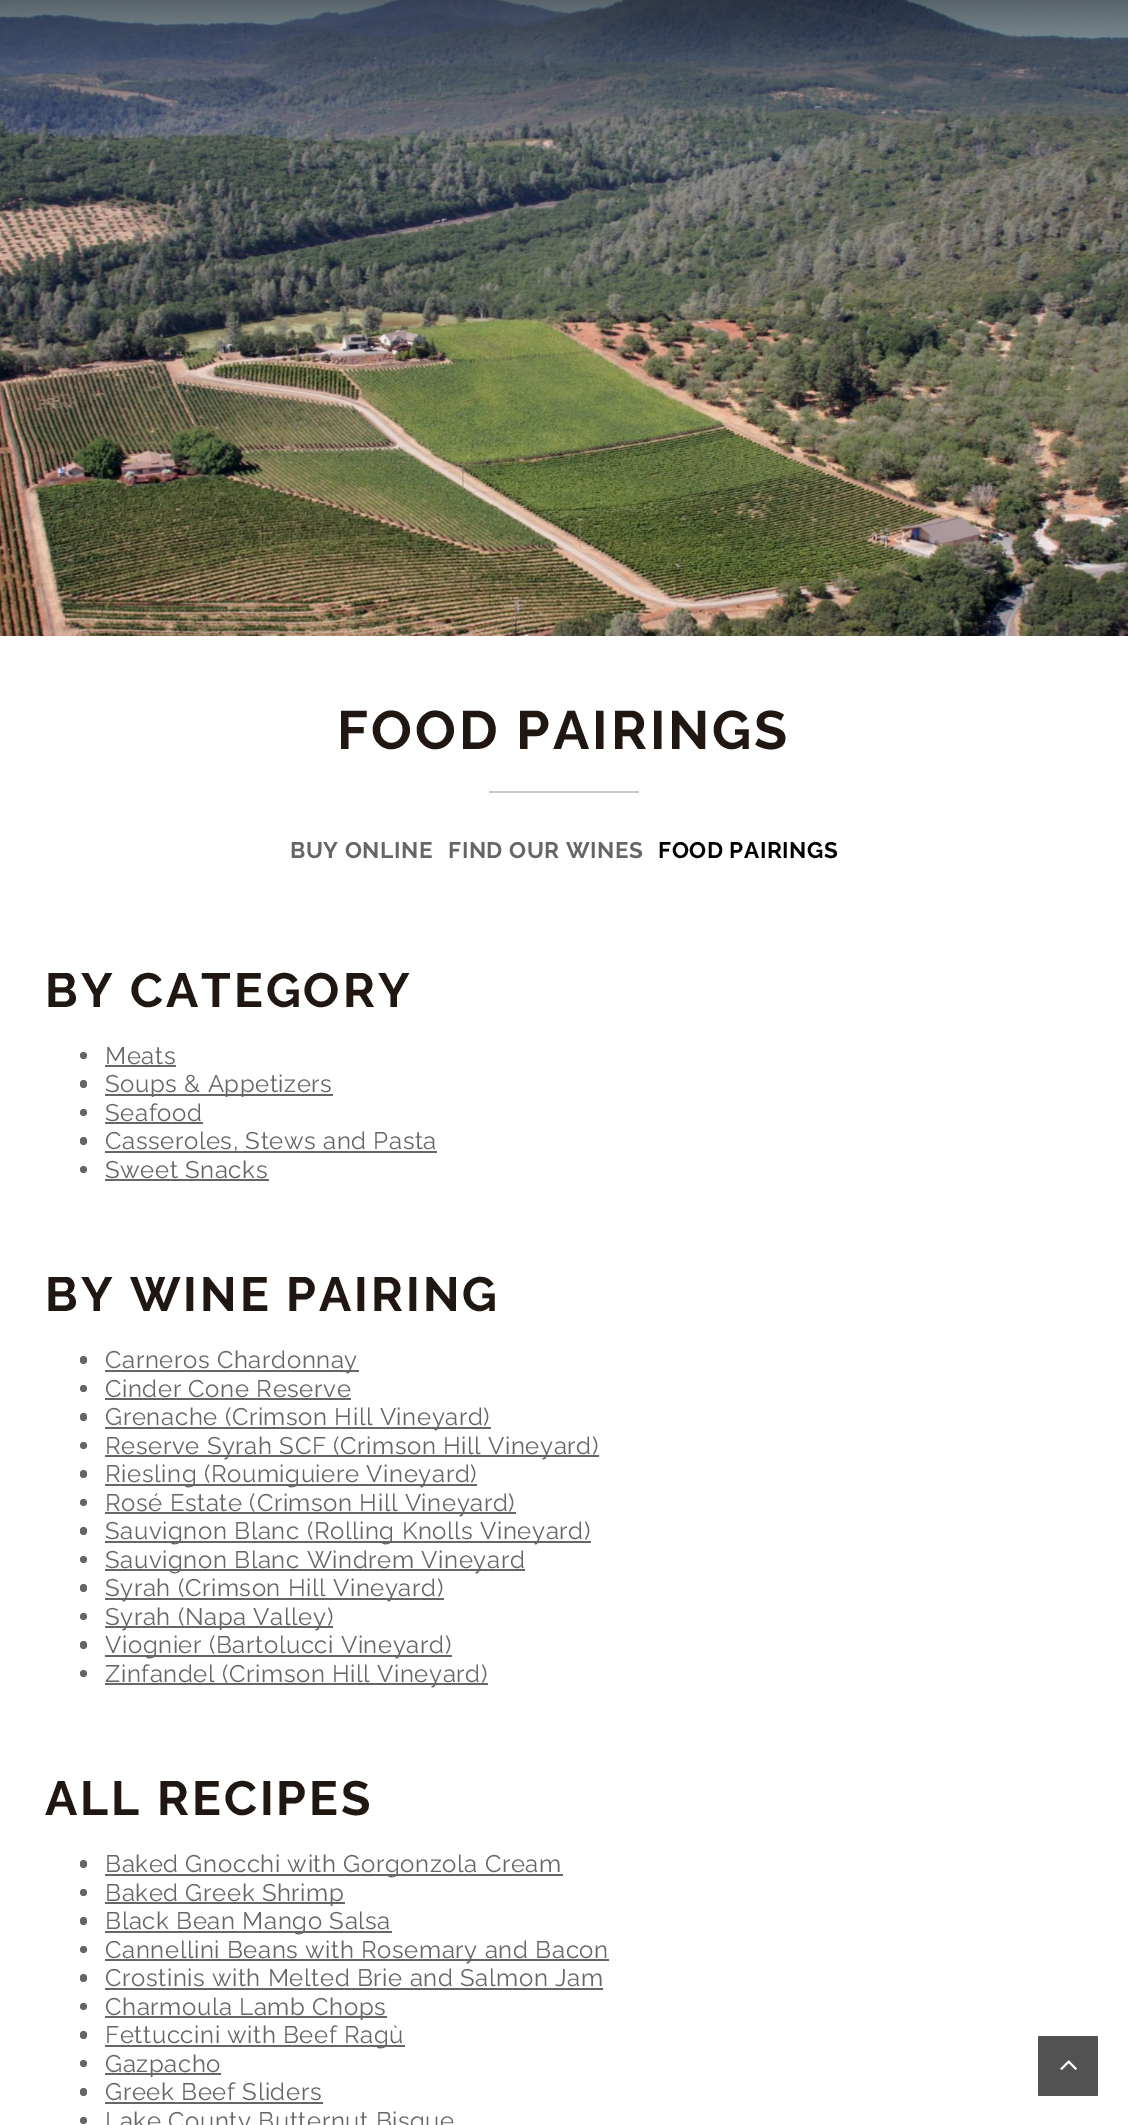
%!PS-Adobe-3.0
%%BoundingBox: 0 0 1128 2125
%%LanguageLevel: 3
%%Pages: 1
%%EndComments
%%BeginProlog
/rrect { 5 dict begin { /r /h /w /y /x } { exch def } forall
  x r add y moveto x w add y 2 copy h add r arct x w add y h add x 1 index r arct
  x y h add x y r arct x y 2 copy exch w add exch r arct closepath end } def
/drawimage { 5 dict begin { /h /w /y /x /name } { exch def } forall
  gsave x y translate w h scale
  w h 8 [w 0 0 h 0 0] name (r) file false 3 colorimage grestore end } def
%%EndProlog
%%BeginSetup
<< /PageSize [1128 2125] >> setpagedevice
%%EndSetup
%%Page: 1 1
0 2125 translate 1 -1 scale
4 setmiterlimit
1 setgray
0 0 1128 2125 rectfill
(images/1.raw) 0 0 1128 636 drawimage
0.78 setgray
489 791 150 2 rectfill
0.4 setgray
newpath 83.5 1055.5 3.5 0 360 arc closepath fill
105 1065 71 2 rectfill
80 1080 7 8 3.5 rrect fill
105 1094 228 2 rectfill
newpath 83.5 1112.5 3.5 0 360 arc closepath fill
105 1122 98 2 rectfill
80 1137 7 8 3.5 rrect fill
105 1151 332 2 rectfill
newpath 83.5 1169.5 3.5 0 360 arc closepath fill
105 1179 164 2 rectfill
80 1356 7 8 3.5 rrect fill
105 1370 254 2 rectfill
newpath 83.5 1388.5 3.5 0 360 arc closepath fill
105 1398 246 2 rectfill
80 1413 7 8 3.5 rrect fill
105 1427 386 2 rectfill
newpath 83.5 1445.5 3.5 0 360 arc closepath fill
105 1455 494 2 rectfill
80 1470 7 8 3.5 rrect fill
105 1484 372 2 rectfill
newpath 83.5 1502.5 3.5 0 360 arc closepath fill
105 1512 411 2 rectfill
80 1527 7 8 3.5 rrect fill
105 1541 486 2 rectfill
newpath 83.5 1559.5 3.5 0 360 arc closepath fill
105 1569 420 2 rectfill
80 1584 7 8 3.5 rrect fill
105 1598 339 2 rectfill
newpath 83.5 1616.5 3.5 0 360 arc closepath fill
105 1626 228 2 rectfill
80 1641 7 8 3.5 rrect fill
105 1655 347 2 rectfill
newpath 83.5 1673.5 3.5 0 360 arc closepath fill
105 1683 383 2 rectfill
80 1860 7 8 3.5 rrect fill
105 1874 458 2 rectfill
newpath 83.5 1892.5 3.5 0 360 arc closepath fill
105 1902 240 2 rectfill
80 1917 7 8 3.5 rrect fill
105 1931 287 2 rectfill
newpath 83.5 1949.5 3.5 0 360 arc closepath fill
105 1959 504 2 rectfill
80 1974 7 8 3.5 rrect fill
105 1988 498 2 rectfill
newpath 83.5 2006.5 3.5 0 360 arc closepath fill
105 2016 282 2 rectfill
80 2031 7 8 3.5 rrect fill
105 2045 300 2 rectfill
newpath 83.5 2063.5 3.5 0 360 arc closepath fill
105 2073 116 2 rectfill
80 2088 7 8 3.5 rrect fill
105 2102 218 2 rectfill
newpath 83.5 2120.5 3.5 0 360 arc closepath fill
0.322 setgray
1038 2036 60 60 1.5 rrect fill
(images/2.raw) 1060 2060 17 10 drawimage
/Raleway-Bold [54 0 0 -54 0 0] selectfont
0.125 0.09 0.075 setrgbcolor
337 749 moveto 3 0 (FOOD PAIRINGS) ashow
/Raleway-Bold [22.5 0 0 -22.5 0 0] selectfont
0.4 setgray
290 858 moveto 0.6 0 (BUY ONLINE) ashow
448 858 moveto 0.6 0 (FIND OUR WINES) ashow
0 setgray
658 858 moveto 0.6 0 (FOOD PAIRINGS) ashow
/Raleway-Bold [48 0 0 -48 0 0] selectfont
0.125 0.09 0.075 setrgbcolor
45 1007 moveto 3 0 (BY CATEGORY) ashow
/Raleway-Regular [24 0 0 -24 0 0] selectfont
0.4 setgray
105 1064 moveto 0.6 0 (Meats) ashow
105 1092 moveto 0.6 0 (Soups & Appetizers) ashow
105 1121 moveto 0.6 0 (Seafood) ashow
105 1149 moveto 0.6 0 (Casseroles, Stews and Pasta) ashow
105 1178 moveto 0.6 0 (Sweet Snacks) ashow
/Raleway-Bold [48 0 0 -48 0 0] selectfont
0.125 0.09 0.075 setrgbcolor
45 1311 moveto 3 0 (BY WINE PAIRING) ashow
/Raleway-Regular [24 0 0 -24 0 0] selectfont
0.4 setgray
105 1368 moveto 0.6 0 (Carneros Chardonnay) ashow
105 1397 moveto 0.6 0 (Cinder Cone Reserve) ashow
105 1425 moveto 0.6 0 (Grenache \(Crimson Hill Vineyard\)) ashow
105 1454 moveto 0.6 0 (Reserve Syrah SCF \(Crimson Hill Vineyard\)) ashow
105 1482 moveto 0.6 0 (Riesling \(Roumiguiere Vineyard\)) ashow
105 1511 moveto 0.6 0 (Rosé Estate \(Crimson Hill Vineyard\)) ashow
105 1539 moveto 0.6 0 (Sauvignon Blanc \(Rolling Knolls Vineyard\)) ashow
105 1568 moveto 0.6 0 (Sauvignon Blanc Windrem Vineyard) ashow
105 1596 moveto 0.6 0 (Syrah \(Crimson Hill Vineyard\)) ashow
105 1625 moveto 0.6 0 (Syrah \(Napa Valley\)) ashow
105 1653 moveto 0.6 0 (Viognier \(Bartolucci Vineyard\)) ashow
105 1682 moveto 0.6 0 (Zinfandel \(Crimson Hill Vineyard\)) ashow
/Raleway-Bold [48 0 0 -48 0 0] selectfont
0.125 0.09 0.075 setrgbcolor
45 1815 moveto 3 0 (ALL RECIPES) ashow
/Raleway-Regular [24 0 0 -24 0 0] selectfont
0.4 setgray
105 1872 moveto 0.6 0 (Baked Gnocchi with Gorgonzola Cream) ashow
105 1901 moveto 0.6 0 (Baked Greek Shrimp) ashow
105 1929 moveto 0.6 0 (Black Bean Mango Salsa) ashow
105 1958 moveto 0.6 0 (Cannellini Beans with Rosemary and Bacon) ashow
105 1986 moveto 0.6 0 (Crostinis with Melted Brie and Salmon Jam) ashow
105 2015 moveto 0.6 0 (Charmoula Lamb Chops) ashow
105 2043 moveto 0.6 0 (Fettuccini with Beef Ragù) ashow
105 2072 moveto 0.6 0 (Gazpacho) ashow
105 2100 moveto 0.6 0 (Greek Beef Sliders) ashow
105 2129 moveto 0.6 0 (Lake County Butternut Bisque) ashow
showpage
%%EOF
